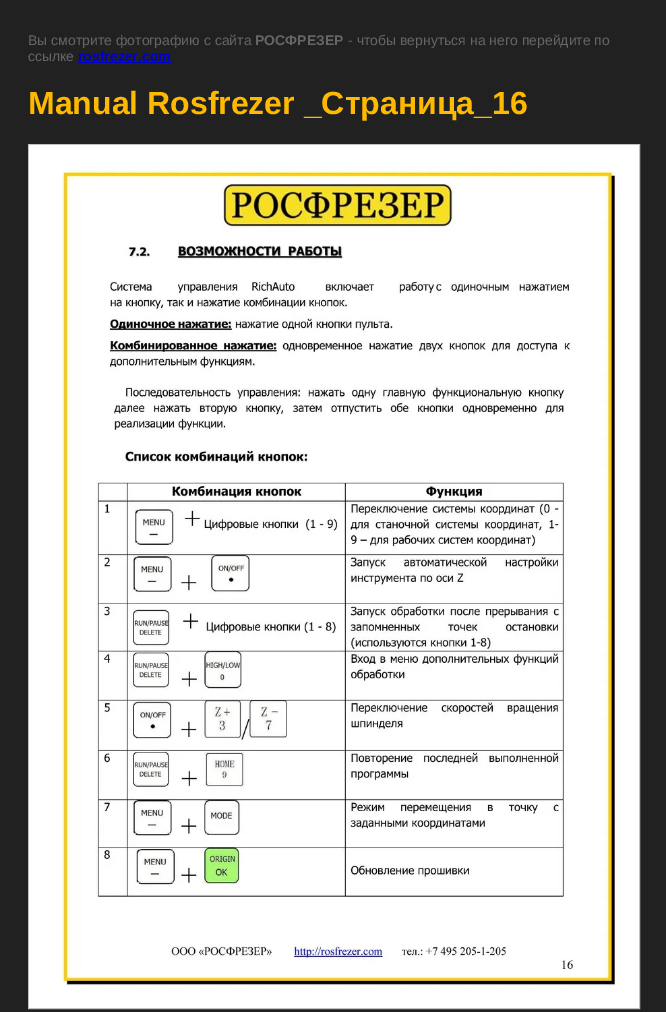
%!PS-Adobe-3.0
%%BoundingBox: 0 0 666 1012
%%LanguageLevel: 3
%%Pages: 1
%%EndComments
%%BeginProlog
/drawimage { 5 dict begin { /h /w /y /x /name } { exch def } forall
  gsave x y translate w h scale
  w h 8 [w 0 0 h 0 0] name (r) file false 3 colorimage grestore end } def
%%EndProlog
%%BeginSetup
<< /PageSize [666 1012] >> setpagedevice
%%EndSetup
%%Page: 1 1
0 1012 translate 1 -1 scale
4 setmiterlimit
0.129 setgray
0 0 666 1012 rectfill
0 0 0.8 setrgbcolor
78 62 93 1 rectfill
0.753 setgray
28.5 144.5 611 864 rectstroke
(images/1.raw) 29 145 610 863 drawimage
/LiberationSans-Regular [14 0 0 -14 0 0] selectfont
0.4 setgray
28 45 moveto (Вы смотрите фотографию с сайта) show
/LiberationSans-Bold [14 0 0 -14 0 0] selectfont
255 45 moveto (РОСФРЕЗЕР) show
/LiberationSans-Regular [14 0 0 -14 0 0] selectfont
348 45 moveto (- чтобы вернуться на него перейдите по) show
28 61 moveto (ссылке) show
/LiberationSans-Bold [14 0 0 -14 0 0] selectfont
0 0 0.8 setrgbcolor
78 61 moveto (rosfrezer.com) show
/LiberationSans-Bold [32 0 0 -32 0 0] selectfont
1 0.729 0 setrgbcolor
28 114 moveto (Manual Rosfrezer _Страница_16) show
showpage
%%EOF
